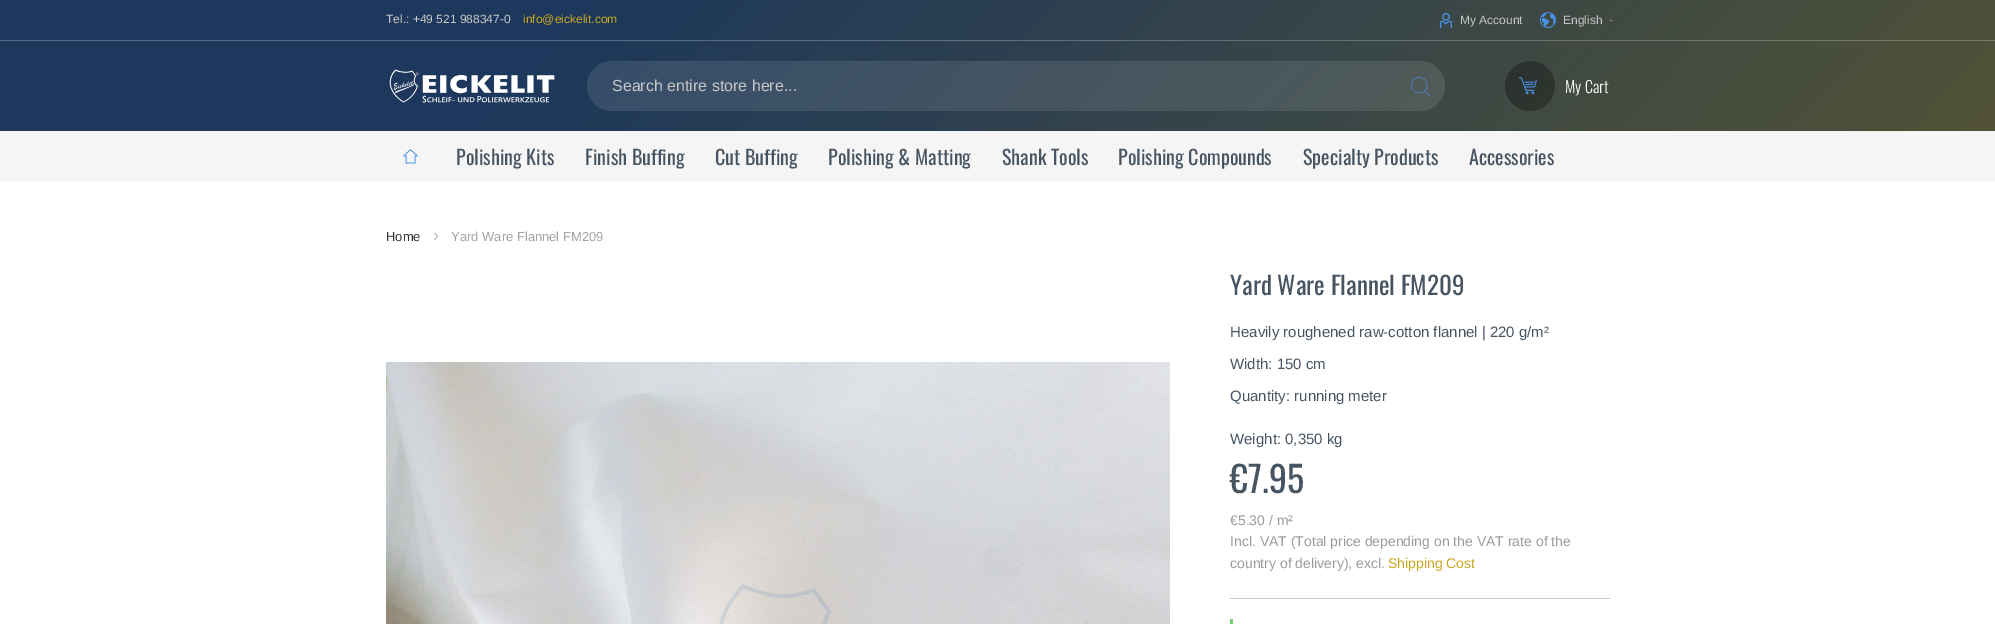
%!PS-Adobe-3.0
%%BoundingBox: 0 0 1995 624
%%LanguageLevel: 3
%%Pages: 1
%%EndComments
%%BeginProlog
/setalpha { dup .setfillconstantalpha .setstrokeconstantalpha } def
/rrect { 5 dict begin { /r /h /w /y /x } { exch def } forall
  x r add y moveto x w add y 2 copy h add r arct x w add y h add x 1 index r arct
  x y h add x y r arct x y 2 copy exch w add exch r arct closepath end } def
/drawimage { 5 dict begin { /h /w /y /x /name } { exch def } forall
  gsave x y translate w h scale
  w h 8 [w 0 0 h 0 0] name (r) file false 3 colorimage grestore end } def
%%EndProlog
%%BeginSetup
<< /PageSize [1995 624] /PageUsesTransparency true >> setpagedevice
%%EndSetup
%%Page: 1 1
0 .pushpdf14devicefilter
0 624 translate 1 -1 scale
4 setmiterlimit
1 setgray
0 0 1995 624 rectfill
gsave newpath 0 0 moveto 1995 0 lineto 1995 131 lineto 0 131 lineto closepath clip newpath
<< /ShadingType 2 /ColorSpace /DeviceRGB /Coords [449 -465 1546 596] /Extend [true true] /Function << /FunctionType 3 /Domain [0 1] /Functions [<< /FunctionType 2 /Domain [0 1] /C0 [0.114 0.22 0.361] /C1 [0.114 0.22 0.361] /N 1 >> << /FunctionType 2 /Domain [0 1] /C0 [0.114 0.22 0.361] /C1 [0.318 0.322 0.212] /N 1 >>] /Bounds [0.28] /Encode [0 1 0 1] >> >> shfill grestore
gsave newpath 0 40 moveto 1995 40 lineto 1995 41 lineto 0 41 lineto closepath clip newpath
<< /ShadingType 2 /ColorSpace /DeviceRGB /Coords [449 -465 1546 596] /Extend [true true] /Function << /FunctionType 3 /Domain [0 1] /Functions [<< /FunctionType 2 /Domain [0 1] /C0 [0.337 0.416 0.522] /C1 [0.337 0.416 0.522] /N 1 >> << /FunctionType 2 /Domain [0 1] /C0 [0.337 0.416 0.522] /C1 [0.49 0.49 0.408] /N 1 >>] /Bounds [0.28] /Encode [0 1 0 1] >> >> shfill grestore
(images/1.raw) 1440 13 12 15 drawimage
(images/2.raw) 1540 12 16 16 drawimage
(images/3.raw) 1609 19 4 3 drawimage
(images/4.raw) 389 69 166 34 drawimage
0.1 setalpha
587 61 858 50 25 rrect fill
1 setalpha
(images/5.raw) 1411 77 19 19 drawimage
(images/6.raw) 1505 61 50 50 drawimage
0.961 setgray
0 131 1995 50 rectfill
(images/7.raw) 403 149 15 15 drawimage
(images/8.raw) 433 232 6 9 drawimage
(images/9.raw) 386 360 784 264 drawimage
0.78 setgray
1230 598 380 1 rectfill
0.447 0.816 0.447 setrgbcolor
1230 619 3 5 rectfill
/LiberationSans-Regular [12 0 0 -12 0 0] selectfont
0.78 setgray
386 23 moveto (Tel.: +49 521 988347-0) show
0.788 0.655 0.133 setrgbcolor
523 23 moveto (info@eickelit.com) show
0.78 setgray
1460 24 moveto (My Account) show
1563 24 moveto (English) show
/LiberationSans-Regular [16 0 0 -16 0 0] selectfont
612 91 moveto (Search entire store here...) show
/Oswald-Light [16 0 0 -16 0 0] selectfont
1 setgray
1565 93 moveto (My Cart) show
/Oswald-Regular [20 0 0 -20 0 0] selectfont
0.278 0.329 0.384 setrgbcolor
456 165 moveto (Polishing Kits) show
585 165 moveto (Finish Buffing) show
715 165 moveto (Cut Buffing) show
828 165 moveto (Polishing & Matting) show
1002 165 moveto (Shank Tools) show
1118 165 moveto (Polishing Compounds) show
1303 165 moveto (Specialty Products) show
1469 165 moveto (Accessories) show
/LiberationSans-Regular [13 0 0 -13 0 0] selectfont
0.2 setgray
386 241 moveto (Home) show
0.639 setgray
451 241 moveto (Yard Ware Flannel FM209) show
/Oswald-Regular [25 0 0 -25 0 0] selectfont
0.278 0.329 0.384 setrgbcolor
1230 295 moveto (Yard Ware Flannel FM209) show
/LiberationSans-Regular [15 0 0 -15 0 0] selectfont
1230 337 moveto (Heavily roughened raw-cotton flannel | 220 g/m²) show
1230 369 moveto (Width: 150 cm) show
1230 401 moveto (Quantity: running meter) show
1230 444 moveto (Weight: 0,350 kg) show
/Oswald-Regular [36 0 0 -36 0 0] selectfont
1230 493 moveto (€7.95) show
/LiberationSans-Regular [14 0 0 -14 0 0] selectfont
0.608 setgray
1230 525 moveto (€5.30 / m²) show
1230 546 moveto (Incl. VAT \(Total price depending on the VAT rate of the) show
1230 568 moveto (country of delivery\), excl.) show
0.788 0.655 0.133 setrgbcolor
1388 568 moveto (Shipping Cost) show
.poppdf14devicefilter showpage
%%EOF
